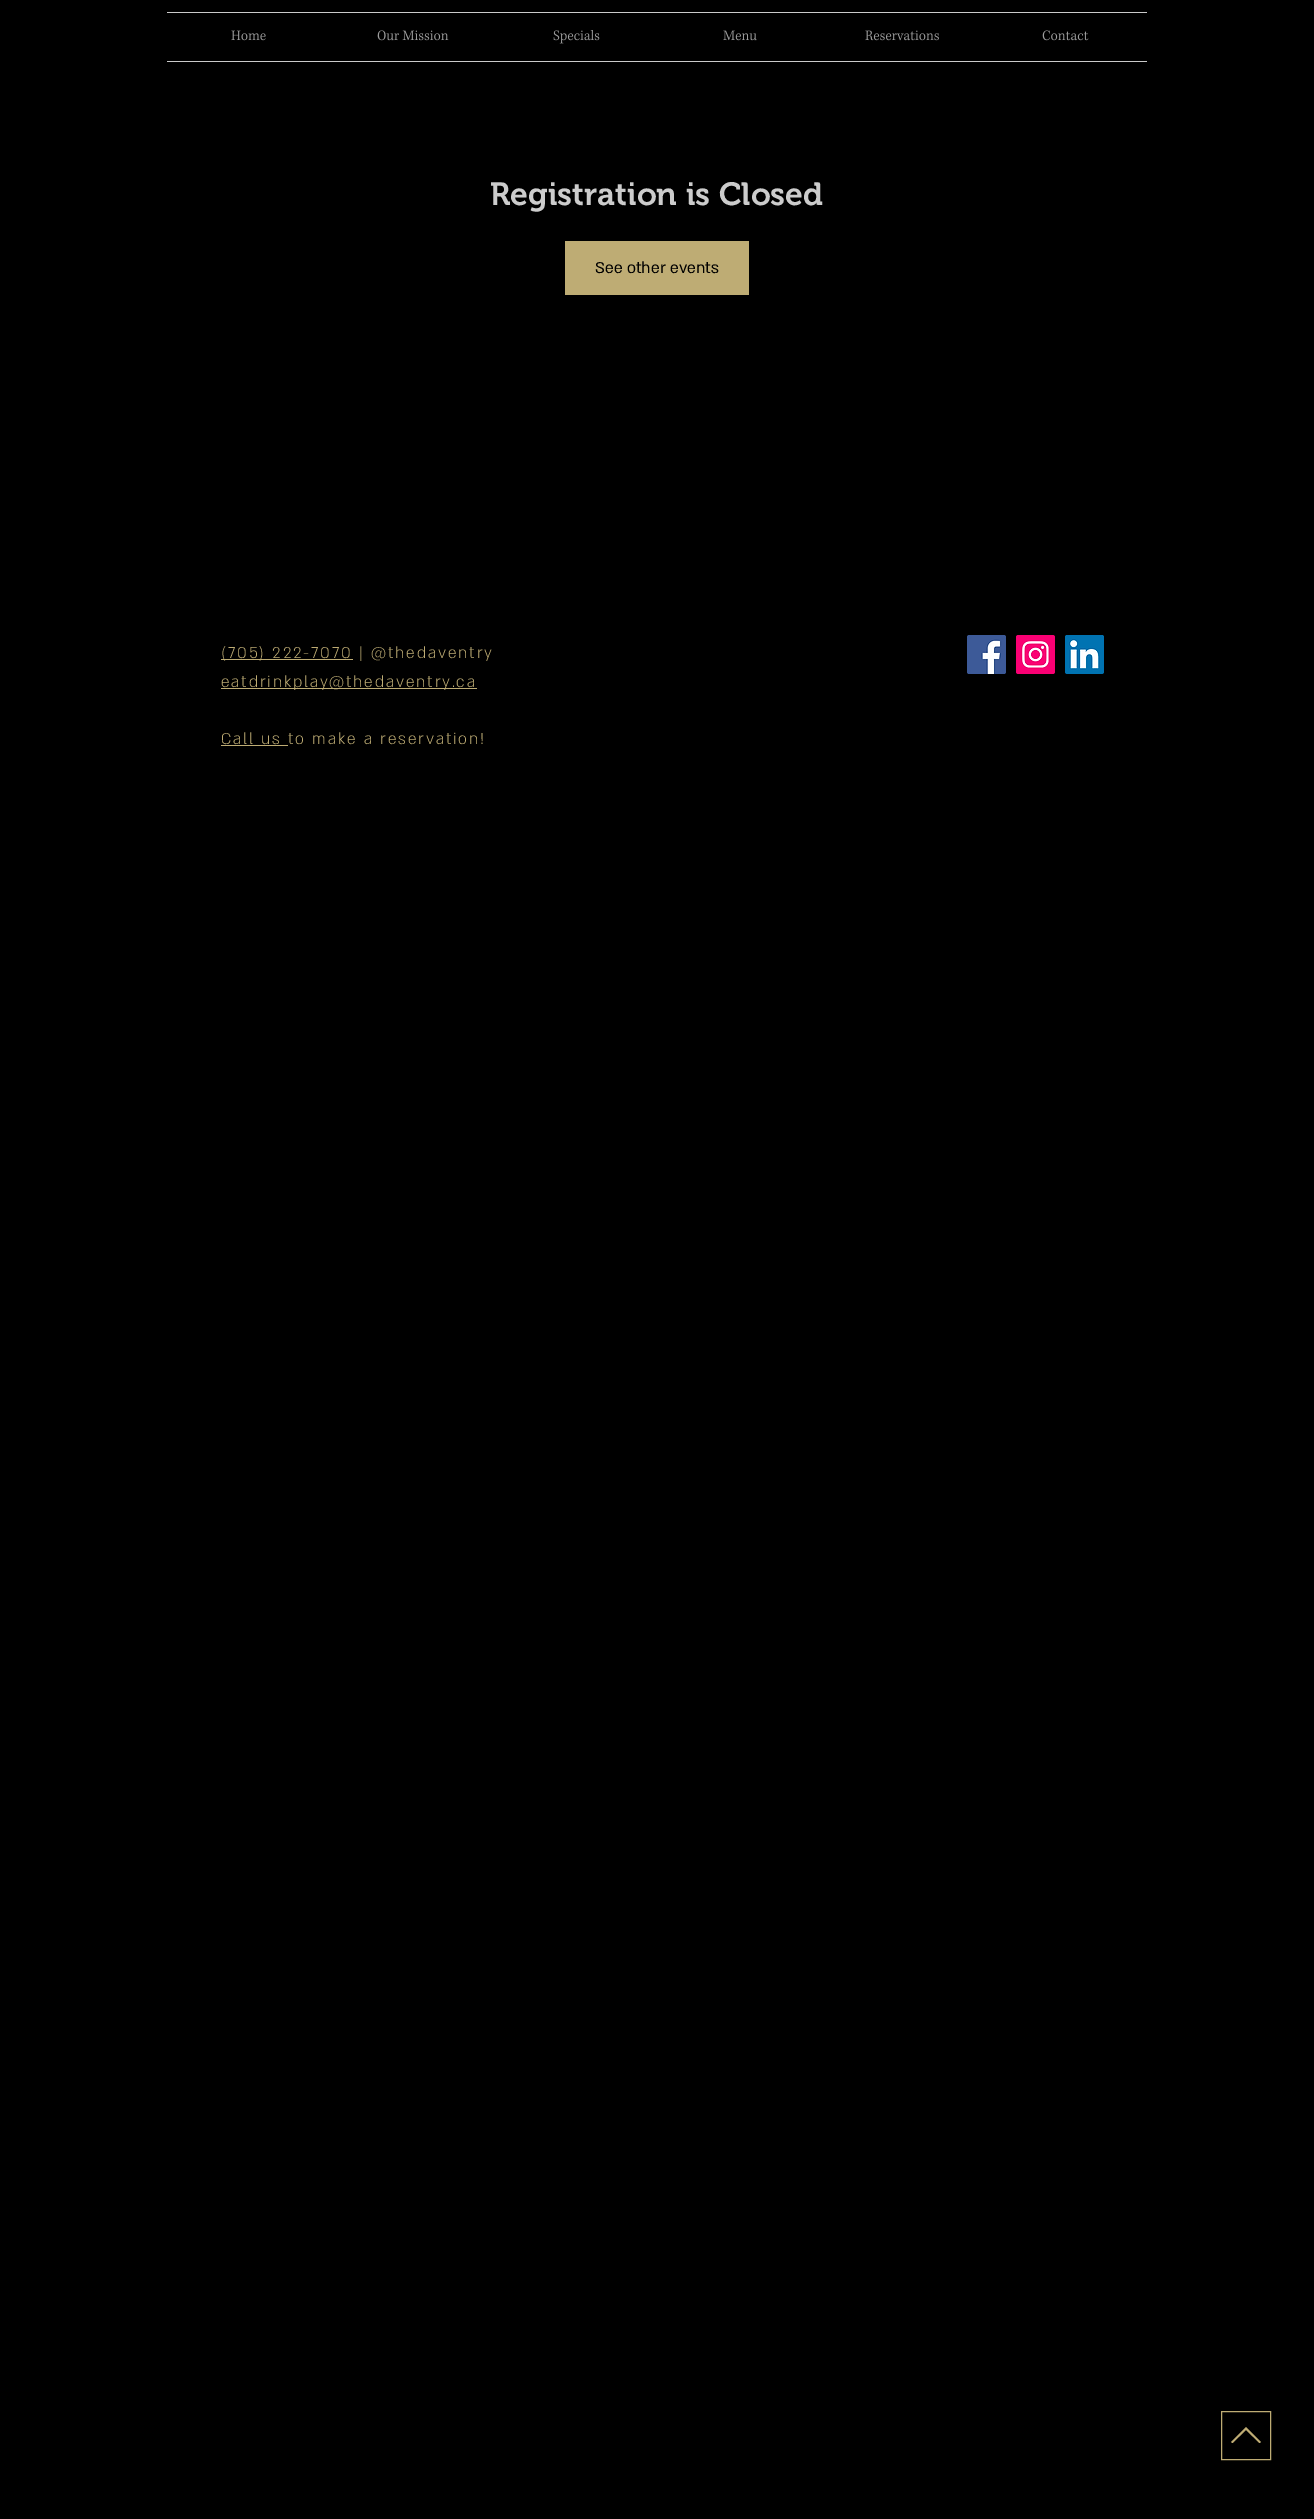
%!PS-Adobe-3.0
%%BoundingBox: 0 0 1314 2519
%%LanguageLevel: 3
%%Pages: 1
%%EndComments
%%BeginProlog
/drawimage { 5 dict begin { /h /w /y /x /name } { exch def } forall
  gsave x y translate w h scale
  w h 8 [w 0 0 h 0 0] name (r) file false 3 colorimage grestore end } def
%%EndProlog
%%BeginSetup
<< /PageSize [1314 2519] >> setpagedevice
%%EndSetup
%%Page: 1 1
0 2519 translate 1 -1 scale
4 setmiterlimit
0 setgray
0 0 1314 2519 rectfill
0.792 setgray
167 12 980 1 rectfill
167 61 980 1 rectfill
(images/1.raw) 231 30 35 11 drawimage
(images/2.raw) 377 30 72 11 drawimage
(images/3.raw) 553 30 47 14 drawimage
(images/4.raw) 723 30 34 11 drawimage
(images/5.raw) 865 30 74 11 drawimage
(images/6.raw) 1042 30 47 11 drawimage
0.745 0.675 0.455 setrgbcolor
565 241 184 54 rectfill
221 659 132 1 rectfill
221 688 256 1 rectfill
221 745 67 1 rectfill
(images/7.raw) 967 635 39 39 drawimage
(images/8.raw) 1016 635 39 39 drawimage
(images/9.raw) 1065 635 39 39 drawimage
1221.5 2411.5 49 48 rectstroke
newpath 1231 2442 moveto 1232.5 2443 lineto 1246 2430 lineto 1259.5 2443 lineto 1261 2442 lineto 1246 2427 lineto closepath fill
/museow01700-SemiBold [32 0 0 -32 0 0] selectfont
0.8 setgray
490 205 moveto (Registration is Closed) show
/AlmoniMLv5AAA-Regular [18 0 0 -18 0 0] selectfont
0 setgray
595 273 moveto (See other events) show
/AlmoniMLv5AAA-Light [18 0 0 -18 0 0] selectfont
0.745 0.675 0.455 setrgbcolor
221 658 moveto 1.8 0 (\(705\) 222-7070 | @thedaventry) ashow
221 687 moveto 1.8 0 (eatdrinkplay@thedaventry.ca) ashow
221 744 moveto 1.8 0 (Call us to make a reservation!) ashow
showpage
%%EOF
